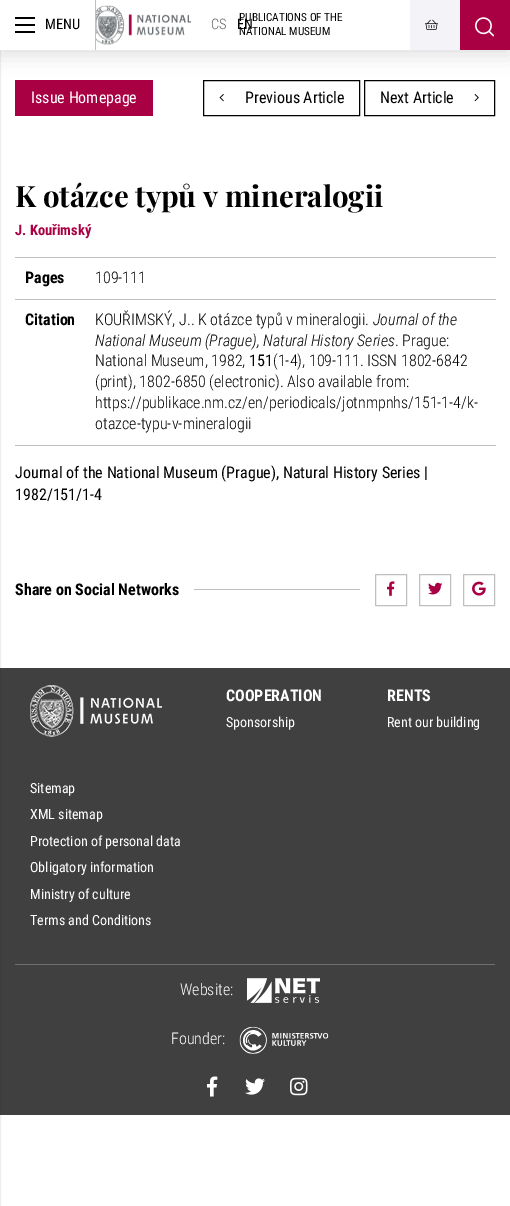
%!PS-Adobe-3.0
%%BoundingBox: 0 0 510 1206
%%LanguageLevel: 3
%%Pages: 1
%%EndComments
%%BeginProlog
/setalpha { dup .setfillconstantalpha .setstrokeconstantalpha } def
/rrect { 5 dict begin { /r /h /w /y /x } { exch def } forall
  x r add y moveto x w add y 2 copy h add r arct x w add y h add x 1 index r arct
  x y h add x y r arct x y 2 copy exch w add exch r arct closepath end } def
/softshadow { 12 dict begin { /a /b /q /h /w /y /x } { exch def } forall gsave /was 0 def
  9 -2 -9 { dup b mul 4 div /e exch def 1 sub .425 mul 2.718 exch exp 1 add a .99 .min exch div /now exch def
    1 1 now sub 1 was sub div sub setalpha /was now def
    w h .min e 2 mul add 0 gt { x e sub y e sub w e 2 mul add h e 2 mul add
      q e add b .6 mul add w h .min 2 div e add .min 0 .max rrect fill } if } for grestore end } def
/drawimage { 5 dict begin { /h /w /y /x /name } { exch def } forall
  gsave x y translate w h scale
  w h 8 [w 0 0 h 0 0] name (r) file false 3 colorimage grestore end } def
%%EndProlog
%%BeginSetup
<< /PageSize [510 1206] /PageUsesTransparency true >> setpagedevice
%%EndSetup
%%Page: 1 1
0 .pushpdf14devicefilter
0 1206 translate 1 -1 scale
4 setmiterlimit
1 setgray
0 0 510 1206 rectfill
0.659 0 0.259 setrgbcolor
15 80 138 36 rectfill
0 setgray
203.5 80.5 156 35 rectstroke
364.5 80.5 130 35 rectstroke
0 5 510 50 0 10 0.12 softshadow
1 setgray
96 0 314 50 rectfill
0.251 setgray
0 668 510 447 rectfill
0 setgray
-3 2 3 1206 0 1 0.2 softshadow
1 setgray
0 0 95 50 rectfill
0.749 setgray
95 0 1 50 rectfill
0 setgray
15 17 20 2 rectfill
15 24 20 2 rectfill
15 31 20 2 rectfill
(images/1.raw) 96 5 95 40 drawimage
0.957 0.957 0.973 setrgbcolor
410 0 50 50 rectfill
(images/2.raw) 425 19 13 11 drawimage
0.659 0 0.259 setrgbcolor
460 0 50 50 rectfill
(images/3.raw) 475 17 20 20 drawimage
(images/4.raw) 219 94 5 8 drawimage
(images/5.raw) 474 94 5 8 drawimage
0.749 setgray
15 257 481 1 rectfill
15 445 481 1 rectfill
15 299 481 1 rectfill
194 589 166 1 rectfill
375.5 574.5 31 31 rectstroke
(images/6.raw) 387 581 8 15 drawimage
419.5 574.5 31 31 rectstroke
(images/7.raw) 428 582 15 13 drawimage
463.5 574.5 31 31 rectstroke
(images/8.raw) 472 581 14 15 drawimage
(images/9.raw) 30 685 132 52 drawimage
0.439 setgray
15 964 480 1 rectfill
(images/10.raw) 247 978 73 25 drawimage
(images/11.raw) 239 1026 90 28 drawimage
(images/12.raw) 207 1076 11 21 drawimage
(images/13.raw) 245 1078 20 17 drawimage
(images/14.raw) 290 1077 18 19 drawimage
/RobotoCondensed-Regular [14.5 0 0 -14.5 0 0] selectfont
0 setgray
45 29 moveto (MENU) show
/RobotoCondensed-Light [14.5 0 0 -14.5 0 0] selectfont
0.4 setgray
211 29 moveto (CS) show
/RobotoCondensed-Regular [14.5 0 0 -14.5 0 0] selectfont
0 setgray
237 29 moveto (EN) show
/RobotoCondensed-Regular [11.25 0 0 -11.25 0 0] selectfont
239 21 moveto (PUBLICATIONS OF THE) show
239 35 moveto (NATIONAL MUSEUM) show
/RobotoCondensed-Regular [16 0 0 -16 0 0] selectfont
1 setgray
31 103 moveto (Issue Homepage) show
0 setgray
245 103 moveto (Previous Article) show
380 103 moveto (Next Article) show
/PlayfairDisplay-Bold [29.4 0 0 -29.4 0 0] selectfont
15 207 moveto (K otázce typů v mineralogii) show
/RobotoCondensed-Bold [14.5 0 0 -14.5 0 0] selectfont
0.659 0 0.259 setrgbcolor
15 235 moveto (J. Kouřimský) show
/RobotoCondensed-Bold [16 0 0 -16 0 0] selectfont
0 setgray
25 283 moveto (Pages) show
/RobotoCondensed-Light [16 0 0 -16 0 0] selectfont
95 283 moveto (109-111) show
/RobotoCondensed-Bold [16 0 0 -16 0 0] selectfont
25 325 moveto (Citation) show
/RobotoCondensed-Light [16 0 0 -16 0 0] selectfont
95 325 moveto (KOUŘIMSKÝ, J.. K otázce typů v mineralogii.) show
/RobotoCondensed-LightItalic [16 0 0 -16 0 0] selectfont
373 325 moveto (Journal of the) show
95 346 moveto (National Museum \(Prague\), Natural History Series) show
/RobotoCondensed-Light [16 0 0 -16 0 0] selectfont
395 346 moveto (. Prague:) show
95 366 moveto (National Museum, 1982,) show
/RobotoCondensed-Regular [16 0 0 -16 0 0] selectfont
249 366 moveto (151) show
/RobotoCondensed-Light [16 0 0 -16 0 0] selectfont
273 366 moveto (\(1-4\), 109-111. ISSN 1802-6842) show
95 387 moveto (\(print\), 1802-6850 \(electronic\). Also available from:) show
95 408 moveto (https://publikace.nm.cz/en/periodicals/jotnmpnhs/151-1-4/k-) show
95 429 moveto (otazce-typu-v-mineralogii) show
/RobotoCondensed-Regular [16 0 0 -16 0 0] selectfont
15 478 moveto (Journal of the National Museum \(Prague\), Natural History Series |) show
15 500 moveto (1982/151/1-4) show
/RobotoCondensed-Bold [16 0 0 -16 0 0] selectfont
15 595 moveto (Share on Social Networks) show
1 setgray
226 701 moveto (COOPERATION) show
/RobotoCondensed-Regular [14 0 0 -14 0 0] selectfont
226 727 moveto (Sponsorship) show
/RobotoCondensed-Bold [16 0 0 -16 0 0] selectfont
387 701 moveto (RENTS) show
/RobotoCondensed-Regular [14 0 0 -14 0 0] selectfont
387 727 moveto (Rent our building) show
30 793 moveto (Sitemap) show
30 819 moveto (XML sitemap) show
30 846 moveto (Protection of personal data) show
30 872 moveto (Obligatory information) show
30 899 moveto (Ministry of culture) show
30 925 moveto (Terms and Conditions) show
/RobotoCondensed-Light [16 0 0 -16 0 0] selectfont
180 995 moveto (Website:) show
171 1044 moveto (Founder:) show
.poppdf14devicefilter showpage
%%EOF
